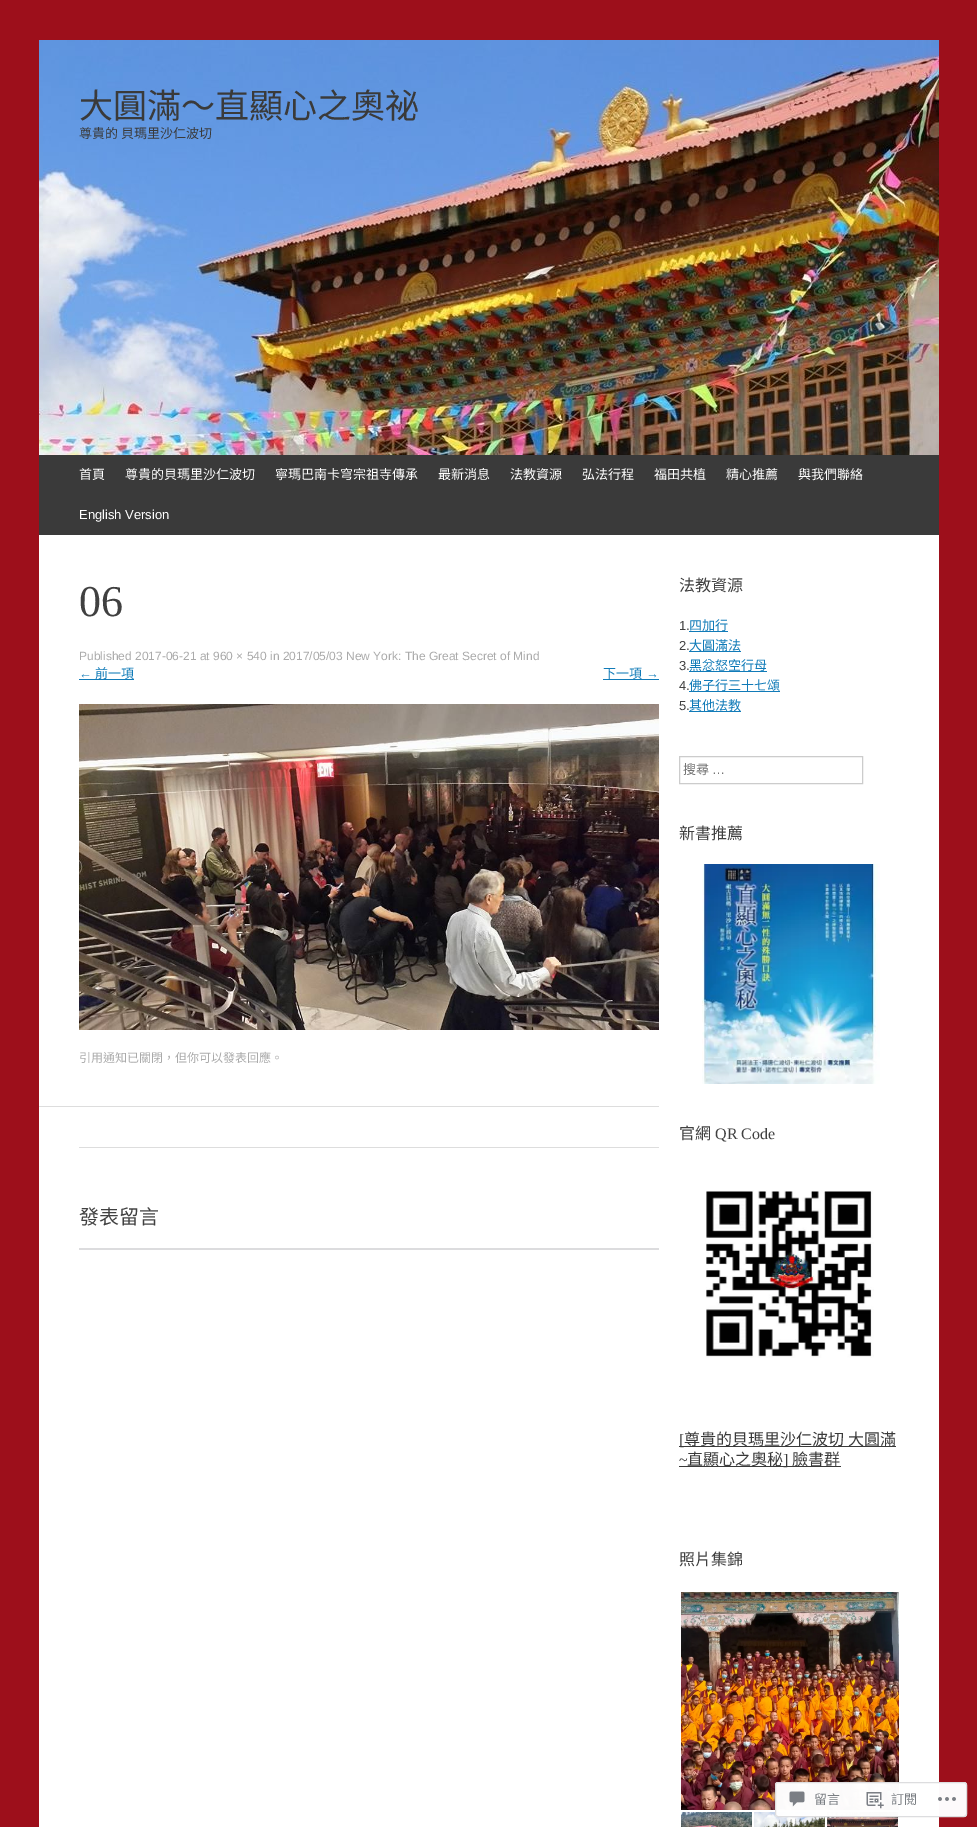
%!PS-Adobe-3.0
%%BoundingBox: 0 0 977 1827
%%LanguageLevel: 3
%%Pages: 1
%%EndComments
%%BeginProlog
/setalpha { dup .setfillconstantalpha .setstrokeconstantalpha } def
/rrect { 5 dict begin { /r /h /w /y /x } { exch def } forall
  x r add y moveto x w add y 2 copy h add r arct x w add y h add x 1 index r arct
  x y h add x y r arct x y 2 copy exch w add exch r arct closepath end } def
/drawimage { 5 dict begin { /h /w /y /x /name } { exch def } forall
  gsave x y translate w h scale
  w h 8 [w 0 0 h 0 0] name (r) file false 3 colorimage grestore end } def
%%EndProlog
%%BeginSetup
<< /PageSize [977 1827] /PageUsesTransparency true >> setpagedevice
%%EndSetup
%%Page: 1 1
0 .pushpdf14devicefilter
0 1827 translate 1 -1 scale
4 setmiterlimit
0.616 0.059 0.106 setrgbcolor
0 0 977 1827 rectfill
1 setgray
39 535 900 1292 rectfill
(images/1.raw) 39 40 900 415 drawimage
0.227 setgray
39 455 900 80 rectfill
0.867 setgray
39 1106 620 1 rectfill
0.067 0.482 0.722 setrgbcolor
79 679 55 1 rectfill
603 679 56 1 rectfill
(images/2.raw) 79 704 580 326 drawimage
0.867 setgray
79 1147 580 1 rectfill
0.863 0.863 0.871 setrgbcolor
79 1248 580 2 rectfill
0.067 0.482 0.722 setrgbcolor
689 631 39 1 rectfill
689 651 52 1 rectfill
689 671 78 1 rectfill
689 691 91 1 rectfill
689 711 52 1 rectfill
0.8 setgray
679.5 756.5 183 27 rectstroke
(images/3.raw) 702 864 178 220 drawimage
(images/4.raw) 706 1190 168 168 drawimage
0.227 setgray
679 1446 217 1 rectfill
679 1466 162 1 rectfill
(images/5.raw) 681 1592 218 218 drawimage
(images/6.raw) 681 1812 71 15 drawimage
(images/7.raw) 754 1812 71 15 drawimage
(images/8.raw) 827 1812 71 15 drawimage
0.98 setalpha
1 setgray
775 1782 192 35 3 rrect fill
0.863 0.863 0.871 setrgbcolor
775.5 1782.5 191 34 2.5 rrect stroke
1 setalpha
(images/9.raw) 789 1791 16 16 drawimage
(images/10.raw) 866 1792 18 17 drawimage
(images/11.raw) 938 1797 18 4 drawimage
/NotoSansCJKTC-Regular [34 0 0 -34 0 0] selectfont
0.227 setgray
79 118 moveto (大圓滿～直顯心之奧祕) show
/NotoSansCJKTC-Regular [13 0 0 -13 0 0] selectfont
79 138 moveto (尊貴的) show
121 138 moveto (貝瑪里沙仁波切) show
1 setgray
79 479 moveto (首頁) show
125 479 moveto (尊貴的貝瑪里沙仁波切) show
275 479 moveto (寧瑪巴南卡穹宗祖寺傳承) show
438 479 moveto (最新消息) show
510 479 moveto (法教資源) show
582 479 moveto (弘法行程) show
654 479 moveto (福田共植) show
726 479 moveto (精心推薦) show
798 479 moveto (與我們聯絡) show
/LiberationSans-Regular [13 0 0 -13 0 0] selectfont
79 519 moveto (English Version) show
/LiberationSerif-Regular [44 0 0 -44 0 0] selectfont
0.251 setgray
79 616 moveto (06) show
/LiberationSans-Regular [12 0 0 -12 0 0] selectfont
0.667 setgray
79 660 moveto (Published 2017-06-21 at 960 × 540 in 2017/05/03 New York: The Great Secret of Mind) show
/LiberationSans-Regular [13 0 0 -13 0 0] selectfont
0.067 0.482 0.722 setrgbcolor
79 678 moveto (←) show
/NotoSansCJKTC-Regular [13 0 0 -13 0 0] selectfont
95 678 moveto (前一項) show
603 678 moveto (下一項) show
/LiberationSans-Regular [13 0 0 -13 0 0] selectfont
646 678 moveto (→) show
/NotoSansCJKTC-Regular [12 0 0 -12 0 0] selectfont
0.667 setgray
79 1062 moveto (引用通知已關閉，但你可以發表回應。) show
/NotoSansCJKTC-Regular [20 0 0 -20 0 0] selectfont
0.251 setgray
79 1224 moveto (發表留言) show
/NotoSansCJKTC-Regular [16 0 0 -16 0 0] selectfont
679 591 moveto (法教資源) show
/LiberationSans-Regular [13 0 0 -13 0 0] selectfont
679 630 moveto (1.) show
/NotoSansCJKTC-Regular [13 0 0 -13 0 0] selectfont
0.067 0.482 0.722 setrgbcolor
689 630 moveto (四加行) show
/LiberationSans-Regular [13 0 0 -13 0 0] selectfont
0.251 setgray
679 650 moveto (2.) show
/NotoSansCJKTC-Regular [13 0 0 -13 0 0] selectfont
0.067 0.482 0.722 setrgbcolor
689 650 moveto (大圓滿法) show
/LiberationSans-Regular [13 0 0 -13 0 0] selectfont
0.251 setgray
679 670 moveto (3.) show
/NotoSansCJKTC-Regular [13 0 0 -13 0 0] selectfont
0.067 0.482 0.722 setrgbcolor
689 670 moveto (黑忿怒空行母) show
/LiberationSans-Regular [13 0 0 -13 0 0] selectfont
0.251 setgray
679 690 moveto (4.) show
/NotoSansCJKTC-Regular [13 0 0 -13 0 0] selectfont
0.067 0.482 0.722 setrgbcolor
689 690 moveto (佛子行三十七頌) show
/LiberationSans-Regular [13 0 0 -13 0 0] selectfont
0.251 setgray
679 710 moveto (5.) show
/NotoSansCJKTC-Regular [13 0 0 -13 0 0] selectfont
0.067 0.482 0.722 setrgbcolor
689 710 moveto (其他法教) show
0.459 setgray
683 774 moveto (搜尋) show
/LiberationSans-Regular [13 0 0 -13 0 0] selectfont
712 774 moveto (…) show
/NotoSansCJKTC-Regular [16 0 0 -16 0 0] selectfont
0.251 setgray
679 839 moveto (新書推薦) show
679 1139 moveto (官網) show
/LiberationSerif-Regular [16 0 0 -16 0 0] selectfont
715 1139 moveto (QR Code) show
0.227 setgray
679 1445 moveto ([) show
/NotoSansCJKTC-Regular [16 0 0 -16 0 0] selectfont
684 1445 moveto (尊貴的貝瑪里沙仁波切 大圓滿) show
/LiberationSerif-Regular [16 0 0 -16 0 0] selectfont
679 1465 moveto (~) show
/NotoSansCJKTC-Regular [16 0 0 -16 0 0] selectfont
687 1465 moveto (直顯心之奧秘) show
/LiberationSerif-Regular [16 0 0 -16 0 0] selectfont
783 1465 moveto (]) show
/NotoSansCJKTC-Regular [16 0 0 -16 0 0] selectfont
792 1465 moveto (臉書群) show
0.251 setgray
679 1565 moveto (照片集錦) show
/NotoSansCJKTC-Regular [13 0 0 -13 0 0] selectfont
0.482 0.498 0.518 setrgbcolor
814 1804 moveto (留言) show
891 1804 moveto (訂閱) show
.poppdf14devicefilter showpage
%%EOF
